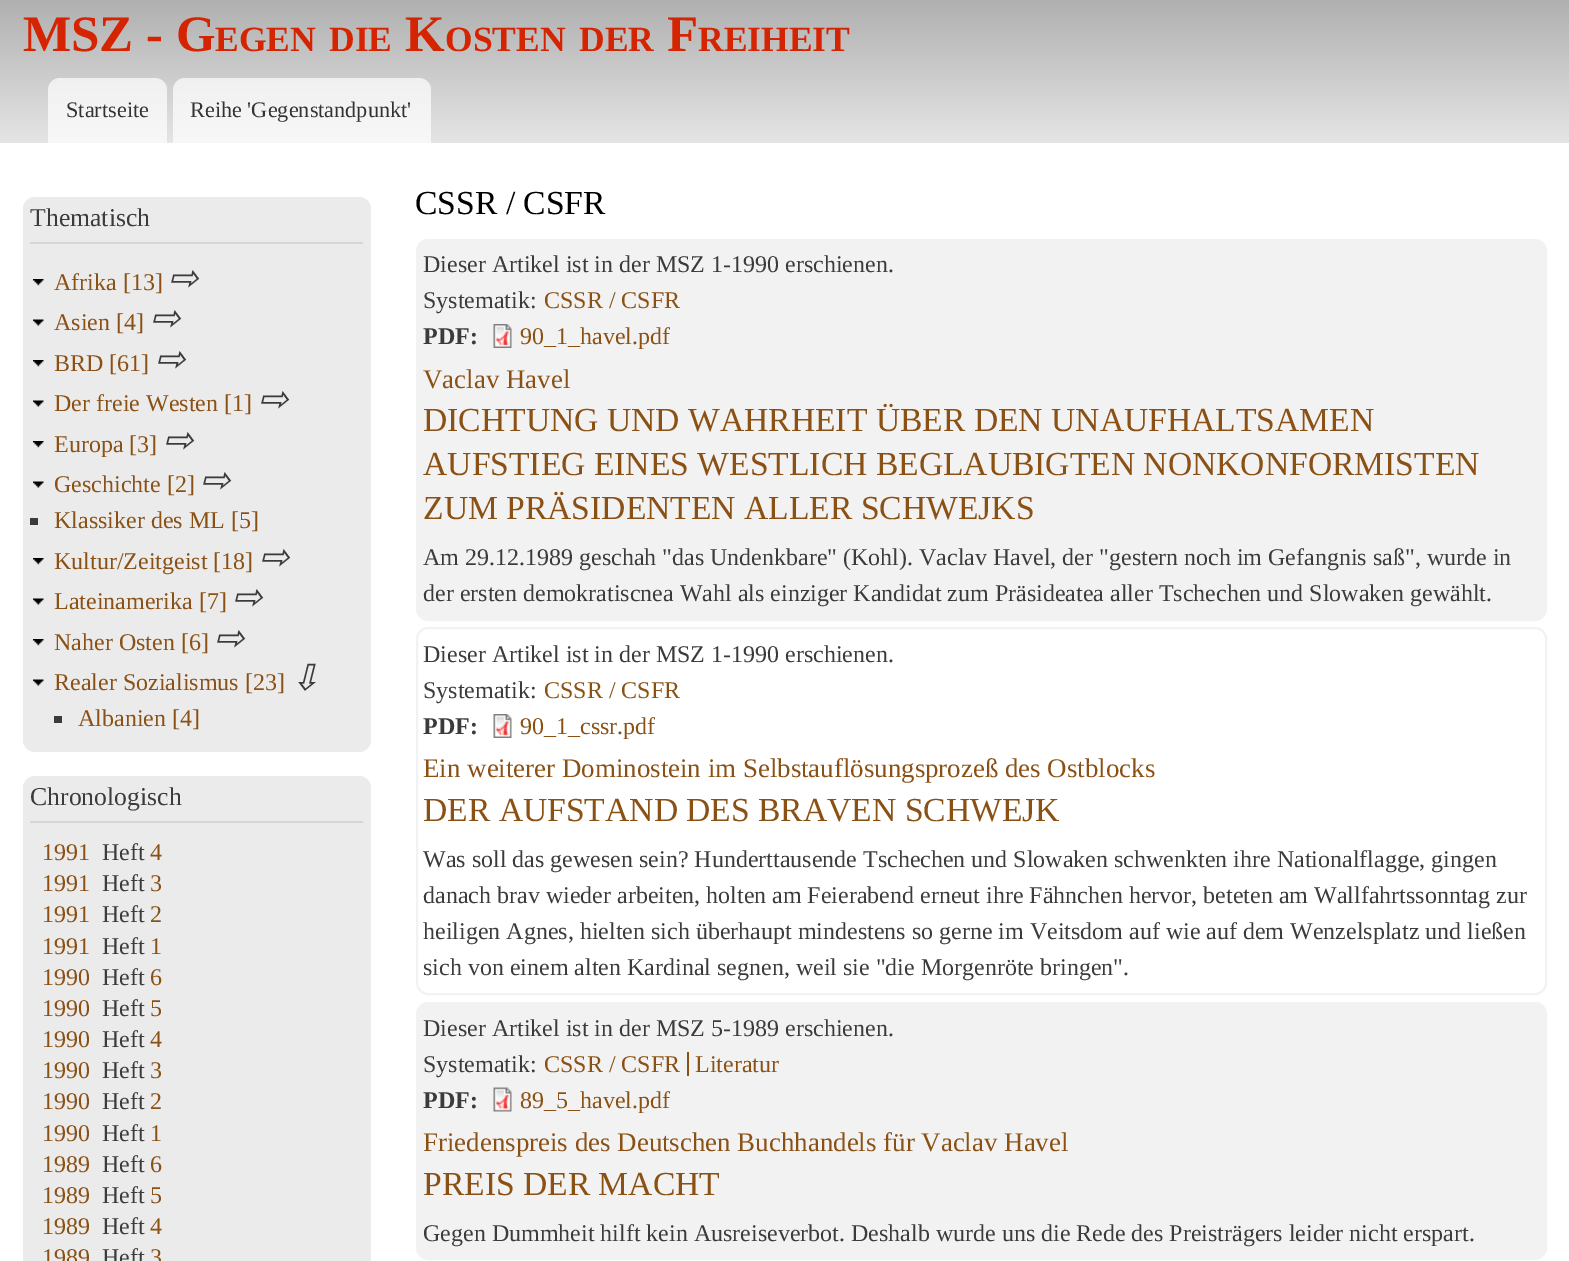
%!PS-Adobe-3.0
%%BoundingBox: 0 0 1569 1261
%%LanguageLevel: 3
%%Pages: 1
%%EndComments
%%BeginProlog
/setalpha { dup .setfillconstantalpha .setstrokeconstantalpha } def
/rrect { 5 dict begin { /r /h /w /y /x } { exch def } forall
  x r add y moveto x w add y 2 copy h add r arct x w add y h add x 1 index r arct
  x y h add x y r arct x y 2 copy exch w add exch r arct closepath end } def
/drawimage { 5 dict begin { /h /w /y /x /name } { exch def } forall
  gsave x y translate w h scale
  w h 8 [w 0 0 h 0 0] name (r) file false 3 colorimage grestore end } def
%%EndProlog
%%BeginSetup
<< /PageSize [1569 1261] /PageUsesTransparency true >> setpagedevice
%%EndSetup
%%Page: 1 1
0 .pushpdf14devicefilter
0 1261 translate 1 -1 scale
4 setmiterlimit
1 setgray
0 0 1569 1261 rectfill
gsave newpath 0 0 moveto 1569 0 lineto 1569 143 lineto 0 143 lineto closepath clip newpath
<< /ShadingType 2 /ColorSpace /DeviceRGB /Coords [785 0 785 143] /Extend [true true] /Function << /FunctionType 2 /Domain [0 1] /C0 [0.69 0.69 0.69] /C1 [0.898 0.898 0.898] /N 1 >> >> shfill grestore
0.7 setalpha
newpath 60 78 moveto 155 78 lineto 161.5 78 167 83.5 167 90 curveto 167 143 lineto 48 143 lineto 48 90 lineto 48 83.5 53.5 78 60 78 curveto closepath fill
newpath 185 78 moveto 419 78 lineto 425.5 78 431 83.5 431 90 curveto 431 143 lineto 173 143 lineto 173 90 lineto 173 83.5 178.5 78 185 78 curveto closepath fill
1 setalpha
0.922 setgray
23 197 348 555 12 rrect fill
0.839 setgray
30 242 333 2 rectfill
(images/1.raw) 33 279 11 7 drawimage
(images/2.raw) 33 319 11 7 drawimage
(images/1.raw) 33 360 11 7 drawimage
(images/2.raw) 33 400 11 7 drawimage
(images/1.raw) 33 441 11 7 drawimage
(images/2.raw) 33 481 11 7 drawimage
0.231 setgray
30 518 8 7 rectfill
(images/1.raw) 33 558 11 7 drawimage
(images/2.raw) 33 598 11 7 drawimage
(images/1.raw) 33 639 11 7 drawimage
(images/2.raw) 33 679 11 7 drawimage
54 716 8 7 rectfill
0.922 setgray
23 776 348 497 12 rrect fill
0.839 setgray
30 821 333 2 rectfill
0.949 setgray
417 240 1129 380 11 rrect gsave fill grestore
2 setlinewidth
stroke
(images/3.raw) 493 324 19 24 drawimage
417 628 1129 366 11 rrect stroke
(images/4.raw) 493 714 19 24 drawimage
417 1003 1129 256 11 rrect gsave fill grestore
stroke
0.541 0.314 0.078 setrgbcolor
687 1052 2 24 rectfill
(images/5.raw) 493 1087 19 25 drawimage
/LiberationSerif-Bold [51 0 0 -51 0 0] selectfont
0.835 0.141 0.004 setrgbcolor
23 51 moveto (MSZ - G) show
/LiberationSerif-Bold [35.5 0 0 -35.5 0 0] selectfont
215 51 moveto (EGEN) show
329 51 moveto (DIE) show
/LiberationSerif-Bold [51 0 0 -51 0 0] selectfont
405 51 moveto (K) show
/LiberationSerif-Bold [35.5 0 0 -35.5 0 0] selectfont
445 51 moveto (OSTEN) show
579 51 moveto (DER) show
/LiberationSerif-Bold [51 0 0 -51 0 0] selectfont
667 51 moveto (F) show
/LiberationSerif-Bold [35.5 0 0 -35.5 0 0] selectfont
698 51 moveto (REIHEIT) show
/LiberationSerif-Regular [22.25 0 0 -22.25 0 0] selectfont
0.2 setgray
66 117 moveto (Startseite) show
190 117 moveto (Reihe 'Gegenstandpunkt') show
/LiberationSerif-Regular [25.75 0 0 -25.75 0 0] selectfont
0.231 setgray
30 226 moveto (Thematisch) show
/LiberationSerif-Regular [24 0 0 -24 0 0] selectfont
0.541 0.314 0.078 setrgbcolor
54 290 moveto (Afrika [13]) show
/DejaVuSans-Italic [36 0 0 -36 0 0] selectfont
0.231 setgray
168 290 moveto (⇨) show
/LiberationSerif-Regular [24 0 0 -24 0 0] selectfont
0.541 0.314 0.078 setrgbcolor
54 330 moveto (Asien [4]) show
/DejaVuSans-Italic [36 0 0 -36 0 0] selectfont
0.231 setgray
150 330 moveto (⇨) show
/LiberationSerif-Regular [24 0 0 -24 0 0] selectfont
0.541 0.314 0.078 setrgbcolor
54 371 moveto (BRD [61]) show
/DejaVuSans-Italic [36 0 0 -36 0 0] selectfont
0.231 setgray
155 371 moveto (⇨) show
/LiberationSerif-Regular [24 0 0 -24 0 0] selectfont
0.541 0.314 0.078 setrgbcolor
54 411 moveto (Der freie Westen [1]) show
/DejaVuSans-Italic [36 0 0 -36 0 0] selectfont
0.231 setgray
258 411 moveto (⇨) show
/LiberationSerif-Regular [24 0 0 -24 0 0] selectfont
0.541 0.314 0.078 setrgbcolor
54 452 moveto (Europa [3]) show
/DejaVuSans-Italic [36 0 0 -36 0 0] selectfont
0.231 setgray
163 452 moveto (⇨) show
/LiberationSerif-Regular [24 0 0 -24 0 0] selectfont
0.541 0.314 0.078 setrgbcolor
54 492 moveto (Geschichte [2]) show
/DejaVuSans-Italic [36 0 0 -36 0 0] selectfont
0.231 setgray
200 492 moveto (⇨) show
/LiberationSerif-Regular [24 0 0 -24 0 0] selectfont
0.541 0.314 0.078 setrgbcolor
54 528 moveto (Klassiker des ML [5]) show
54 569 moveto (Kultur/Zeitgeist [18]) show
/DejaVuSans-Italic [36 0 0 -36 0 0] selectfont
0.231 setgray
259 569 moveto (⇨) show
/LiberationSerif-Regular [24 0 0 -24 0 0] selectfont
0.541 0.314 0.078 setrgbcolor
54 609 moveto (Lateinamerika [7]) show
/DejaVuSans-Italic [36 0 0 -36 0 0] selectfont
0.231 setgray
232 609 moveto (⇨) show
/LiberationSerif-Regular [24 0 0 -24 0 0] selectfont
0.541 0.314 0.078 setrgbcolor
54 650 moveto (Naher Osten [6]) show
/DejaVuSans-Italic [36 0 0 -36 0 0] selectfont
0.231 setgray
214 650 moveto (⇨) show
/LiberationSerif-Regular [24 0 0 -24 0 0] selectfont
0.541 0.314 0.078 setrgbcolor
54 690 moveto (Realer Sozialismus [23]) show
/DejaVuSans-Italic [36 0 0 -36 0 0] selectfont
0.231 setgray
290 690 moveto (⇩) show
/LiberationSerif-Regular [24 0 0 -24 0 0] selectfont
0.541 0.314 0.078 setrgbcolor
78 726 moveto (Albanien [4]) show
/LiberationSerif-Regular [25.75 0 0 -25.75 0 0] selectfont
0.231 setgray
30 805 moveto (Chronologisch) show
/LiberationSerif-Regular [24 0 0 -24 0 0] selectfont
0.541 0.314 0.078 setrgbcolor
42 860 moveto (1991) show
0.231 setgray
102 860 moveto (Heft) show
0.541 0.314 0.078 setrgbcolor
150 860 moveto (4) show
42 891 moveto (1991) show
0.231 setgray
102 891 moveto (Heft) show
0.541 0.314 0.078 setrgbcolor
150 891 moveto (3) show
42 922 moveto (1991) show
0.231 setgray
102 922 moveto (Heft) show
0.541 0.314 0.078 setrgbcolor
150 922 moveto (2) show
42 954 moveto (1991) show
0.231 setgray
102 954 moveto (Heft) show
0.541 0.314 0.078 setrgbcolor
150 954 moveto (1) show
42 985 moveto (1990) show
0.231 setgray
102 985 moveto (Heft) show
0.541 0.314 0.078 setrgbcolor
150 985 moveto (6) show
42 1016 moveto (1990) show
0.231 setgray
102 1016 moveto (Heft) show
0.541 0.314 0.078 setrgbcolor
150 1016 moveto (5) show
42 1047 moveto (1990) show
0.231 setgray
102 1047 moveto (Heft) show
0.541 0.314 0.078 setrgbcolor
150 1047 moveto (4) show
42 1078 moveto (1990) show
0.231 setgray
102 1078 moveto (Heft) show
0.541 0.314 0.078 setrgbcolor
150 1078 moveto (3) show
42 1109 moveto (1990) show
0.231 setgray
102 1109 moveto (Heft) show
0.541 0.314 0.078 setrgbcolor
150 1109 moveto (2) show
42 1141 moveto (1990) show
0.231 setgray
102 1141 moveto (Heft) show
0.541 0.314 0.078 setrgbcolor
150 1141 moveto (1) show
42 1172 moveto (1989) show
0.231 setgray
102 1172 moveto (Heft) show
0.541 0.314 0.078 setrgbcolor
150 1172 moveto (6) show
42 1203 moveto (1989) show
0.231 setgray
102 1203 moveto (Heft) show
0.541 0.314 0.078 setrgbcolor
150 1203 moveto (5) show
42 1234 moveto (1989) show
0.231 setgray
102 1234 moveto (Heft) show
0.541 0.314 0.078 setrgbcolor
150 1234 moveto (4) show
42 1265 moveto (1989) show
0.231 setgray
102 1265 moveto (Heft) show
0.541 0.314 0.078 setrgbcolor
150 1265 moveto (3) show
/LiberationSerif-Regular [33.6 0 0 -33.6 0 0] selectfont
0 setgray
415 214 moveto (CSSR / CSFR) show
/LiberationSerif-Regular [24 0 0 -24 0 0] selectfont
0.231 setgray
423 272 moveto (Dieser Artikel ist in der MSZ 1-1990 erschienen.) show
423 308 moveto (Systematik:) show
0.541 0.314 0.078 setrgbcolor
544 308 moveto (CSSR / CSFR) show
/LiberationSerif-Bold [24 0 0 -24 0 0] selectfont
0.231 setgray
423 344 moveto (PDF:) show
/LiberationSerif-Regular [24 0 0 -24 0 0] selectfont
0.541 0.314 0.078 setrgbcolor
520 344 moveto (90_1_havel.pdf) show
/LiberationSerif-Regular [26.9 0 0 -26.9 0 0] selectfont
423 388 moveto (Vaclav Havel) show
/LiberationSerif-Regular [33.6 0 0 -33.6 0 0] selectfont
423 431 moveto (DICHTUNG UND WAHRHEIT ÜBER DEN UNAUFHALTSAMEN) show
423 475 moveto (AUFSTIEG EINES WESTLICH BEGLAUBIGTEN NONKONFORMISTEN) show
423 519 moveto (ZUM PRÄSIDENTEN ALLER SCHWEJKS) show
/LiberationSerif-Regular [24 0 0 -24 0 0] selectfont
0.231 setgray
423 565 moveto (Am 29.12.1989 geschah "das Undenkbare" \(Kohl\). Vaclav Havel, der "gestern noch im Gefangnis saß", wurde in) show
423 601 moveto (der ersten demokratiscnea Wahl als einziger Kandidat zum Präsideatea aller Tschechen und Slowaken gewählt.) show
423 662 moveto (Dieser Artikel ist in der MSZ 1-1990 erschienen.) show
423 698 moveto (Systematik:) show
0.541 0.314 0.078 setrgbcolor
544 698 moveto (CSSR / CSFR) show
/LiberationSerif-Bold [24 0 0 -24 0 0] selectfont
0.231 setgray
423 734 moveto (PDF:) show
/LiberationSerif-Regular [24 0 0 -24 0 0] selectfont
0.541 0.314 0.078 setrgbcolor
520 734 moveto (90_1_cssr.pdf) show
/LiberationSerif-Regular [26.9 0 0 -26.9 0 0] selectfont
423 777 moveto (Ein weiterer Dominostein im Selbstauflösungsprozeß des Ostblocks) show
/LiberationSerif-Regular [33.6 0 0 -33.6 0 0] selectfont
423 821 moveto (DER AUFSTAND DES BRAVEN SCHWEJK) show
/LiberationSerif-Regular [24 0 0 -24 0 0] selectfont
0.231 setgray
423 867 moveto (Was soll das gewesen sein? Hunderttausende Tschechen und Slowaken schwenkten ihre Nationalflagge, gingen) show
423 903 moveto (danach brav wieder arbeiten, holten am Feierabend erneut ihre Fähnchen hervor, beteten am Wallfahrtssonntag zur) show
423 939 moveto (heiligen Agnes, hielten sich überhaupt mindestens so gerne im Veitsdom auf wie auf dem Wenzelsplatz und ließen) show
423 975 moveto (sich von einem alten Kardinal segnen, weil sie "die Morgenröte bringen".) show
423 1036 moveto (Dieser Artikel ist in der MSZ 5-1989 erschienen.) show
423 1072 moveto (Systematik:) show
0.541 0.314 0.078 setrgbcolor
544 1072 moveto (CSSR / CSFR) show
695 1072 moveto (Literatur) show
/LiberationSerif-Bold [24 0 0 -24 0 0] selectfont
0.231 setgray
423 1108 moveto (PDF:) show
/LiberationSerif-Regular [24 0 0 -24 0 0] selectfont
0.541 0.314 0.078 setrgbcolor
520 1108 moveto (89_5_havel.pdf) show
/LiberationSerif-Regular [26.9 0 0 -26.9 0 0] selectfont
423 1151 moveto (Friedenspreis des Deutschen Buchhandels für Vaclav Havel) show
/LiberationSerif-Regular [33.6 0 0 -33.6 0 0] selectfont
423 1195 moveto (PREIS DER MACHT) show
/LiberationSerif-Regular [24 0 0 -24 0 0] selectfont
0.231 setgray
423 1241 moveto (Gegen Dummheit hilft kein Ausreiseverbot. Deshalb wurde uns die Rede des Preisträgers leider nicht erspart.) show
.poppdf14devicefilter showpage
%%EOF
